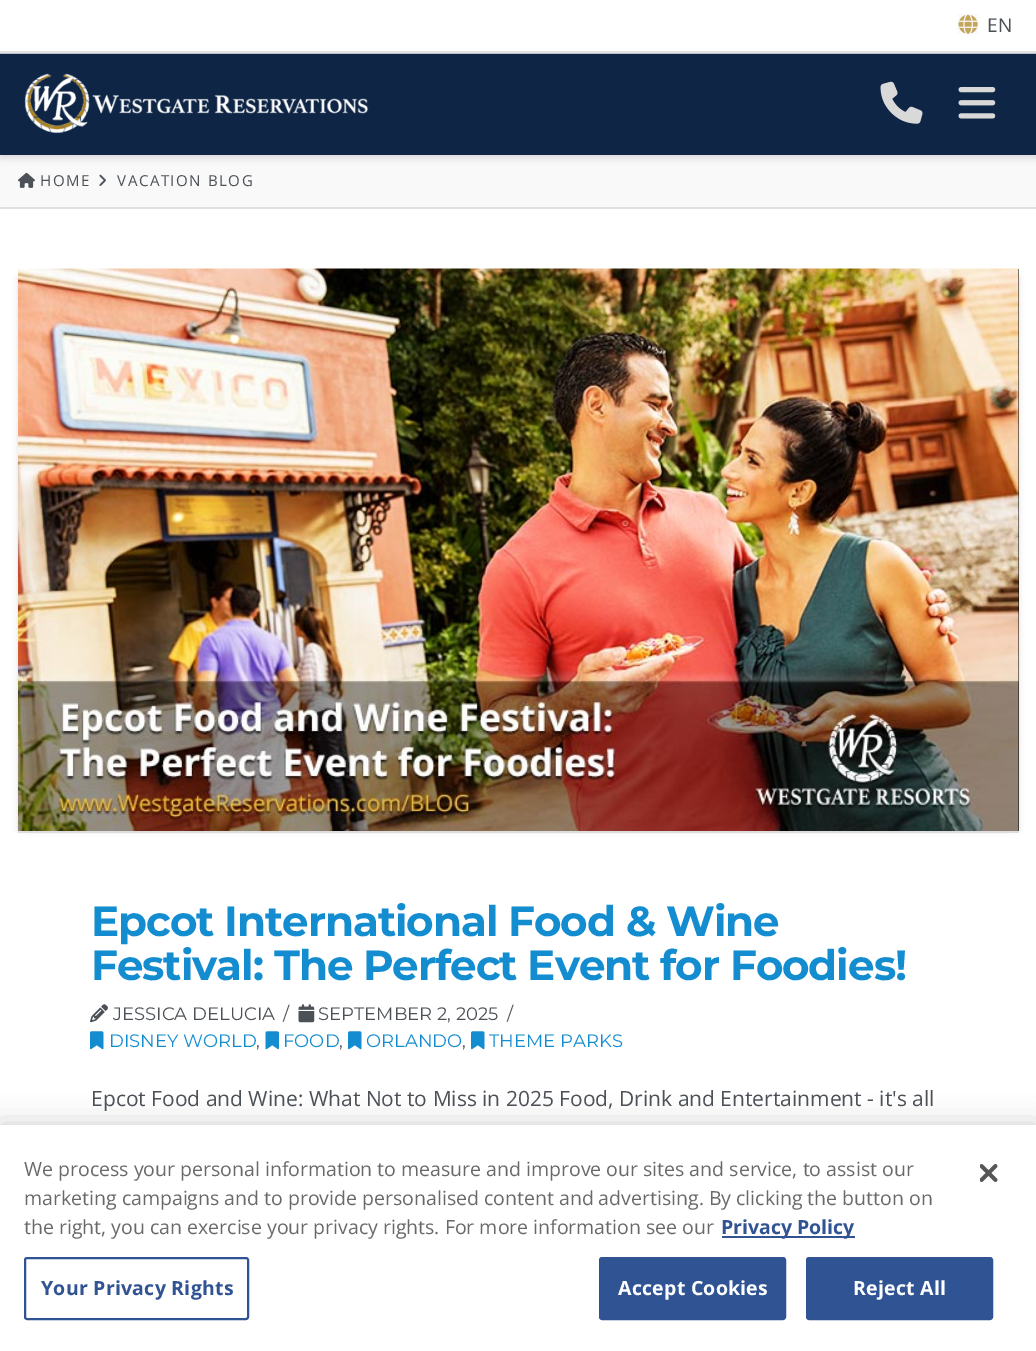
%!PS-Adobe-3.0
%%BoundingBox: 0 0 1036 1351
%%LanguageLevel: 3
%%Pages: 1
%%EndComments
%%BeginProlog
/setalpha { dup .setfillconstantalpha .setstrokeconstantalpha } def
/rrect { 5 dict begin { /r /h /w /y /x } { exch def } forall
  x r add y moveto x w add y 2 copy h add r arct x w add y h add x 1 index r arct
  x y h add x y r arct x y 2 copy exch w add exch r arct closepath end } def
/softshadow { 12 dict begin { /a /b /q /h /w /y /x } { exch def } forall gsave /was 0 def
  9 -2 -9 { dup b mul 4 div /e exch def 1 sub .425 mul 2.718 exch exp 1 add a .99 .min exch div /now exch def
    1 1 now sub 1 was sub div sub setalpha /was now def
    w h .min e 2 mul add 0 gt { x e sub y e sub w e 2 mul add h e 2 mul add
      q e add b .6 mul add w h .min 2 div e add .min 0 .max rrect fill } if } for grestore end } def
/drawimage { 5 dict begin { /h /w /y /x /name } { exch def } forall
  gsave x y translate w h scale
  w h 8 [w 0 0 h 0 0] name (r) file false 3 colorimage grestore end } def
%%EndProlog
%%BeginSetup
<< /PageSize [1036 1351] /PageUsesTransparency true >> setpagedevice
%%EndSetup
%%Page: 1 1
0 .pushpdf14devicefilter
0 1351 translate 1 -1 scale
4 setmiterlimit
1 setgray
0 0 1036 1351 rectfill
0.976 setgray
0 155 1036 52 rectfill
0 setgray
0 56 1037 102 0 3.5 0.13 softshadow
0.055 0.145 0.271 setrgbcolor
0 53 1036 102 rectfill
0.71 setalpha
1 setgray
newpath 0 52 moveto 0 54 lineto 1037 54 lineto 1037 2 lineto 1036 2 lineto 1036 52 lineto closepath fill
0.1 setalpha
0 setgray
0 51 1036 2 rectfill
1 setalpha
(images/1.raw) 958 14 20 20 drawimage
(images/2.raw) 24 73 345 61 drawimage
(images/3.raw) 880 81 43 43 drawimage
(images/4.raw) 958 87 38 32 drawimage
0.878 setgray
0 207 1036 2 rectfill
(images/5.raw) 18 172 17 16 drawimage
(images/6.raw) 99 174 7 12 drawimage
0 setgray
18 278 989 552 0 3 0.13 softshadow
30 278 989 552 0 3 0.13 softshadow
0.867 setgray
18 831 1001 2 rectfill
0 setgray
1018 269 1 562 rectfill
(images/7.raw) 18 268 1001 563 drawimage
(images/8.raw) 90 1004 18 19 drawimage
(images/9.raw) 298 1004 17 19 drawimage
(images/10.raw) 90 1031 14 19 drawimage
(images/11.raw) 265 1031 14 19 drawimage
(images/10.raw) 348 1031 14 19 drawimage
(images/10.raw) 471 1031 14 19 drawimage
0 1125 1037 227 0 13.5 0.2 softshadow
1 setgray
0 1125 1036 226 rectfill
0.188 0.325 0.576 setrgbcolor
722 1236 133 2 rectfill
2 setlinewidth
25 1258 223 61 2 rrect stroke
600 1258 185 61 2 rrect gsave fill grestore
stroke
807 1258 185 61 2 rrect gsave fill grestore
stroke
(images/12.raw) 980 1164 18 18 drawimage
/OpenSans-Regular [19 0 0 -19 0 0] selectfont
0.298 0.318 0.341 setrgbcolor
987 32 moveto (EN) show
/OpenSans-Regular [15.1 0 0 -15.1 0 0] selectfont
40 186 moveto 1.5 0 (HOME) ashow
117 186 moveto 1.5 0 (VACATION BLOG) ashow
/Montserrat-Bold [42 0 0 -42 0 0] selectfont
0.078 0.553 0.816 setrgbcolor
91 936 moveto -1.05 0 (Epcot International Food & Wine) ashow
91 980 moveto -1.05 0 (Festival: The Perfect Event for Foodies!) ashow
/Montserrat-Regular [18 0 0 -18 0 0] selectfont
0.298 0.318 0.341 setrgbcolor
113 1020 moveto (JESSICA DELUCIA) show
283 1020 moveto (/) show
318 1020 moveto (SEPTEMBER 2, 2025) show
507 1020 moveto (/) show
0.078 0.553 0.816 setrgbcolor
109 1047 moveto (DISNEY WORLD) show
0.298 0.318 0.341 setrgbcolor
256 1047 moveto (,) show
0.078 0.553 0.816 setrgbcolor
283 1047 moveto (FOOD) show
0.298 0.318 0.341 setrgbcolor
339 1047 moveto (,) show
0.078 0.553 0.816 setrgbcolor
366 1047 moveto (ORLANDO) show
0.298 0.318 0.341 setrgbcolor
462 1047 moveto (,) show
0.078 0.553 0.816 setrgbcolor
489 1047 moveto (THEME PARKS) show
/OpenSans-Regular [21 0 0 -21 0 0] selectfont
0.298 0.318 0.341 setrgbcolor
91 1106 moveto (Epcot Food and Wine: What Not to Miss in 2025 Food, Drink and Entertainment - it's all) show
/OpenSans-Regular [19.5 0 0 -19.5 0 0] selectfont
0.412 setgray
24 1176 moveto (We process your personal information to measure and improve our sites and service, to assist our) show
24 1205 moveto (marketing campaigns and to provide personalised content and advertising. By clicking the button on) show
24 1234 moveto (the right, you can exercise your privacy rights. For more information see our) show
/OpenSans-Bold [19.5 0 0 -19.5 0 0] selectfont
0.188 0.325 0.576 setrgbcolor
721 1234 moveto (Privacy Policy) show
41 1295 moveto 0.25 0 (Your Privacy Rights) ashow
1 setgray
618 1295 moveto 0.25 0 (Accept Cookies) ashow
853 1295 moveto 0.25 0 (Reject All) ashow
.poppdf14devicefilter showpage
%%EOF
